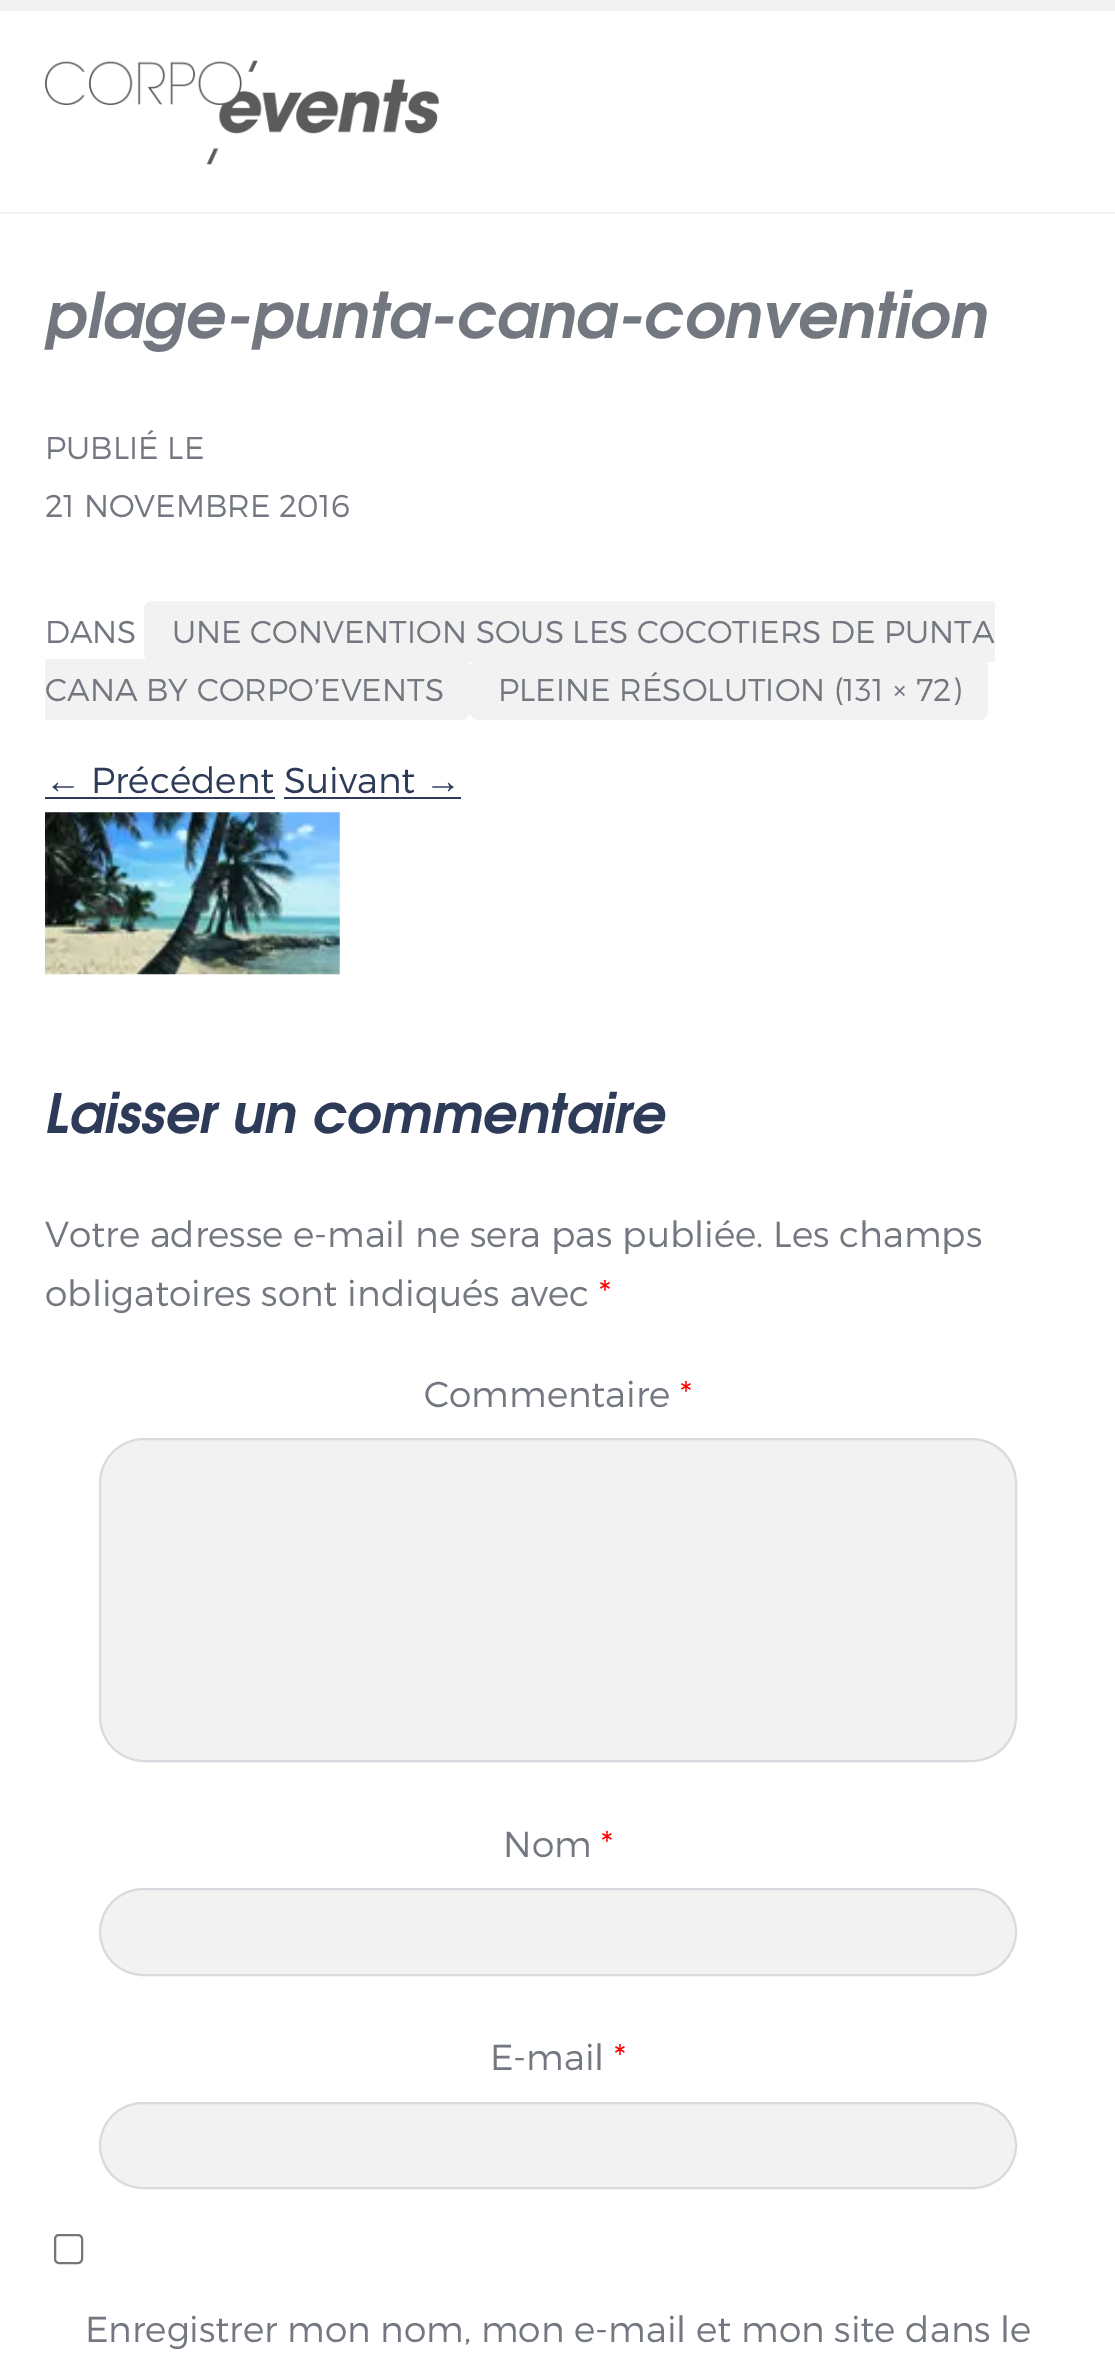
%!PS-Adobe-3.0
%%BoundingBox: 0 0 1115 2374
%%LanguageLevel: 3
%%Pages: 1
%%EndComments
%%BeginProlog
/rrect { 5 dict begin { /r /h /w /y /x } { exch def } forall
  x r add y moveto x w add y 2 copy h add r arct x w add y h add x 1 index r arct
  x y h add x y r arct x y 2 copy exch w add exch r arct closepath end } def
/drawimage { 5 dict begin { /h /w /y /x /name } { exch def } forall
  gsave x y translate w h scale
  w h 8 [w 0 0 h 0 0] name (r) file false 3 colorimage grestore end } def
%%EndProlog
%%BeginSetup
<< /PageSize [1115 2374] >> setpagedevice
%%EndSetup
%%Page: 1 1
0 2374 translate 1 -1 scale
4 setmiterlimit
1 setgray
0 0 1115 2374 rectfill
0.949 setgray
0 0 1115 11 rectfill
0 212 1115 2 rectfill
(images/1.raw) 45 60 394 105 drawimage
newpath 153 601 moveto 995 601 lineto 995 662 lineto 153 662 lineto 148 662 144 658 144 653 curveto 144 610 lineto 144 605 148 601 153 601 curveto closepath fill
newpath 45 659 moveto 461 659 lineto 466 659 470 663 470 668 curveto 470 711 lineto 470 716 466 720 461 720 curveto 45 720 lineto closepath fill
470 659 518 61 9 rrect fill
0.176 0.231 0.349 setrgbcolor
45 797 230 2 rectfill
284 797 177 2 rectfill
(images/2.raw) 45 812 295 163 drawimage
0.949 setgray
100 1439 916 322 44 rrect gsave fill grestore
0.843 0.859 0.878 setrgbcolor
2 setlinewidth
stroke
0.949 setgray
100 1889 916 86 43 rrect gsave fill grestore
0.843 0.859 0.878 setrgbcolor
stroke
0.949 setgray
100 2103 916 85 42.5 rrect gsave fill grestore
0.843 0.859 0.878 setrgbcolor
stroke
0.463 setgray
55 2235 27 28 4 rrect stroke
/TeXGyreAdventor-BoldItalic [63 0 0 -63 0 0] selectfont
0.451 0.467 0.502 setrgbcolor
45 338 moveto (plage-punta-cana-convention) show
/Montserrat-Light [31.5 0 0 -31.5 0 0] selectfont
45 459 moveto (PUBLIÉ LE) show
45 517 moveto (21 NOVEMBRE 2016) show
45 643 moveto (DANS) show
172 643 moveto (UNE CONVENTION SOUS LES COCOTIERS DE PUNTA) show
45 701 moveto (CANA BY CORPO’EVENTS) show
498 701 moveto (PLEINE RÉSOLUTION \(131 × 72\)) show
/LiberationSans-Regular [36 0 0 -36 0 0] selectfont
0.176 0.231 0.349 setrgbcolor
45 793 moveto (←) show
/Montserrat-Light [36 0 0 -36 0 0] selectfont
91 793 moveto (Précédent Suivant) show
/LiberationSans-Regular [36 0 0 -36 0 0] selectfont
425 793 moveto (→) show
/TeXGyreAdventor-BoldItalic [54 0 0 -54 0 0] selectfont
45 1133 moveto (Laisser un commentaire) show
/Montserrat-Light [36 0 0 -36 0 0] selectfont
0.451 0.467 0.502 setrgbcolor
45 1247 moveto (Votre adresse e-mail ne sera pas publiée. Les champs) show
45 1306 moveto (obligatoires sont indiqués avec) show
1 0 0 setrgbcolor
599 1306 moveto (*) show
0.451 0.467 0.502 setrgbcolor
424 1407 moveto (Commentaire) show
1 0 0 setrgbcolor
680 1407 moveto (*) show
0.451 0.467 0.502 setrgbcolor
503 1857 moveto (Nom) show
1 0 0 setrgbcolor
601 1857 moveto (*) show
0.451 0.467 0.502 setrgbcolor
490 2070 moveto (E-mail) show
1 0 0 setrgbcolor
614 2070 moveto (*) show
0.451 0.467 0.502 setrgbcolor
85 2342 moveto (Enregistrer mon nom, mon e-mail et mon site dans le) show
showpage
%%EOF
